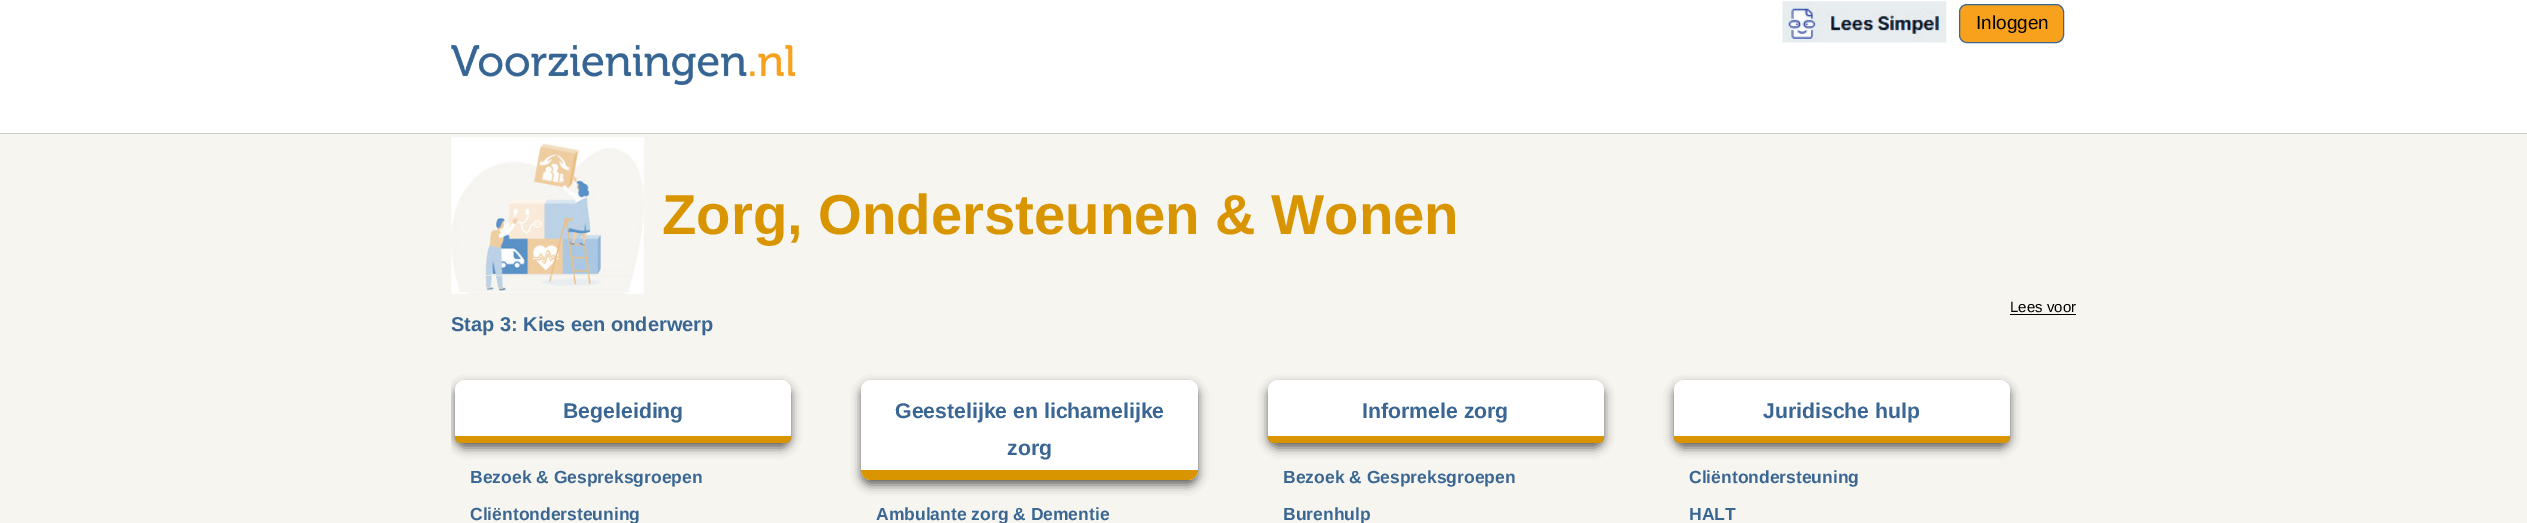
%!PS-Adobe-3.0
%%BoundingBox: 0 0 2527 523
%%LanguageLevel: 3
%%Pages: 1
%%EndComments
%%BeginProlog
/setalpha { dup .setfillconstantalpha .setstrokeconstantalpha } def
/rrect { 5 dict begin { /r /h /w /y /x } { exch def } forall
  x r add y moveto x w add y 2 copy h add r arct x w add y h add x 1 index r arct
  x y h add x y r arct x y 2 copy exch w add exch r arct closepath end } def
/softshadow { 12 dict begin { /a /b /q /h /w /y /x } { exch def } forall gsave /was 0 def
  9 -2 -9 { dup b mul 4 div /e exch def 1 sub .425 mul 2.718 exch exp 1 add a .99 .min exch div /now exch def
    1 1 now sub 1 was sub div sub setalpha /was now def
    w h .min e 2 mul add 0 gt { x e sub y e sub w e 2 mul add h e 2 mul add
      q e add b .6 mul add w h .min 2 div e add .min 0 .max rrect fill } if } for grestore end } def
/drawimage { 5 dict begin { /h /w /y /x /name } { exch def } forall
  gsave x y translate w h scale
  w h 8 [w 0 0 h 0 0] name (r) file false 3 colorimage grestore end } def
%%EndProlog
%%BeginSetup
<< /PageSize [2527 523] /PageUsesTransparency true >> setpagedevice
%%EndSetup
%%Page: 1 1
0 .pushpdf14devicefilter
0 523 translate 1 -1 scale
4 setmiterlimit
0.965 0.961 0.941 setrgbcolor
0 0 2527 523 rectfill
1 setgray
0 0 2527 133 rectfill
0.8 setgray
0 133 2527 1 rectfill
(images/1.raw) 1782 1 165 42 drawimage
0.973 0.631 0.114 setrgbcolor
1959.5 4.5 104 38 7.5 rrect gsave fill grestore
0.224 0.4 0.576 setrgbcolor
stroke
(images/2.raw) 451 45 344 40 drawimage
(images/3.raw) 451 137 193 157 drawimage
0 setgray
2010 314 66 1 rectfill
gsave
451 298 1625 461 rectclip
455 385 336 63 10 5 0.6 softshadow
grestore
1 setgray
455 380 336 63 10 rrect fill
0.851 0.584 0 setrgbcolor
newpath 455 436 moveto 791 436 lineto 791 437 lineto 791 440.5 788.5 443 785 443 curveto 461 443 lineto 457.5 443 455 440.5 455 437 curveto closepath fill
0 setgray
861 385 337 100 10 5 0.6 softshadow
1 setgray
861 380 337 100 10 rrect fill
0.851 0.584 0 setrgbcolor
newpath 861 470 moveto 1198 470 lineto 1198 475.5 1193.5 480 1188 480 curveto 871 480 lineto 865.5 480 861 475.5 861 470 curveto closepath fill
0 setgray
1268 385 336 63 10 5 0.6 softshadow
1 setgray
1268 380 336 63 10 rrect fill
0.851 0.584 0 setrgbcolor
newpath 1268 436 moveto 1604 436 lineto 1604 437 lineto 1604 440.5 1601.5 443 1598 443 curveto 1274 443 lineto 1270.5 443 1268 440.5 1268 437 curveto closepath fill
0 setgray
1674 385 336 63 10 5 0.6 softshadow
1 setgray
1674 380 336 63 10 rrect fill
0.851 0.584 0 setrgbcolor
newpath 1674 436 moveto 2010 436 lineto 2010 437 lineto 2010 440.5 2007.5 443 2004 443 curveto 1680 443 lineto 1676.5 443 1674 440.5 1674 437 curveto closepath fill
/LiberationSans-Regular [19 0 0 -19 0 0] selectfont
0 setgray
1976 29 moveto (Inloggen) show
/LiberationSans-Bold [56.25 0 0 -56.25 0 0] selectfont
0.851 0.584 0 setrgbcolor
662 234 moveto (Zorg, Ondersteunen & Wonen) show
/LiberationSans-Regular [15 0 0 -15 0 0] selectfont
0 setgray
2010 312 moveto (Lees voor) show
/LiberationSans-Bold [20 0 0 -20 0 0] selectfont
0.227 0.4 0.576 setrgbcolor
451 331 moveto (Stap 3: Kies een onderwerp) show
/LiberationSans-Bold [21.25 0 0 -21.25 0 0] selectfont
563 418 moveto (Begeleiding) show
/LiberationSans-Bold [17.5 0 0 -17.5 0 0] selectfont
470 483 moveto (Bezoek & Gespreksgroepen) show
470 520 moveto (Cliëntondersteuning) show
/LiberationSans-Bold [21.25 0 0 -21.25 0 0] selectfont
895 418 moveto (Geestelijke en lichamelijke) show
1007 455 moveto (zorg) show
/LiberationSans-Bold [17.5 0 0 -17.5 0 0] selectfont
876 520 moveto (Ambulante zorg & Dementie) show
/LiberationSans-Bold [21.25 0 0 -21.25 0 0] selectfont
1362 418 moveto (Informele zorg) show
/LiberationSans-Bold [17.5 0 0 -17.5 0 0] selectfont
1283 483 moveto (Bezoek & Gespreksgroepen) show
1283 520 moveto (Burenhulp) show
/LiberationSans-Bold [21.25 0 0 -21.25 0 0] selectfont
1763 418 moveto (Juridische hulp) show
/LiberationSans-Bold [17.5 0 0 -17.5 0 0] selectfont
1689 483 moveto (Cliëntondersteuning) show
1689 520 moveto (HALT) show
.poppdf14devicefilter showpage
%%EOF
